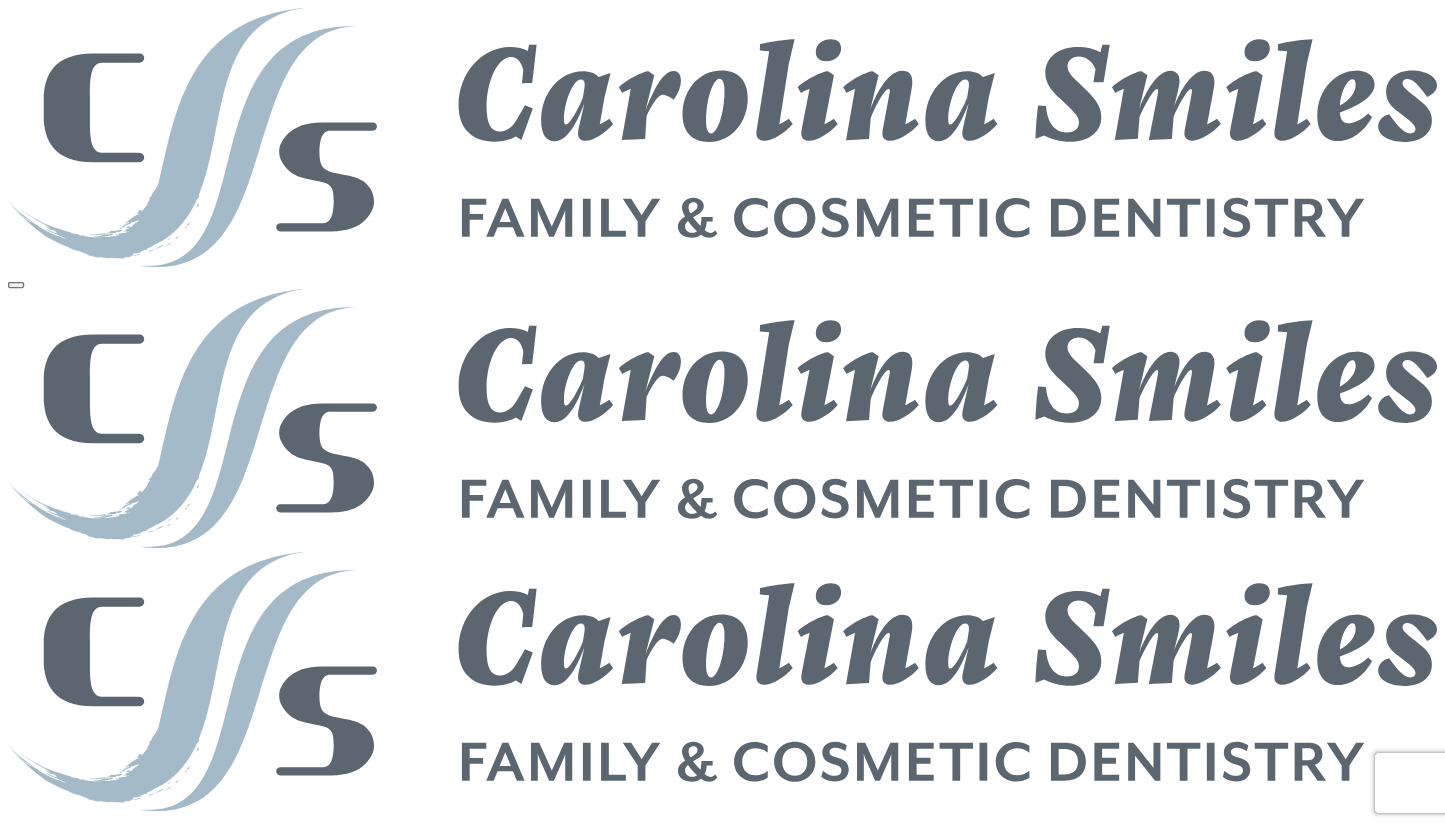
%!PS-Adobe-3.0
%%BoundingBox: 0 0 1445 827
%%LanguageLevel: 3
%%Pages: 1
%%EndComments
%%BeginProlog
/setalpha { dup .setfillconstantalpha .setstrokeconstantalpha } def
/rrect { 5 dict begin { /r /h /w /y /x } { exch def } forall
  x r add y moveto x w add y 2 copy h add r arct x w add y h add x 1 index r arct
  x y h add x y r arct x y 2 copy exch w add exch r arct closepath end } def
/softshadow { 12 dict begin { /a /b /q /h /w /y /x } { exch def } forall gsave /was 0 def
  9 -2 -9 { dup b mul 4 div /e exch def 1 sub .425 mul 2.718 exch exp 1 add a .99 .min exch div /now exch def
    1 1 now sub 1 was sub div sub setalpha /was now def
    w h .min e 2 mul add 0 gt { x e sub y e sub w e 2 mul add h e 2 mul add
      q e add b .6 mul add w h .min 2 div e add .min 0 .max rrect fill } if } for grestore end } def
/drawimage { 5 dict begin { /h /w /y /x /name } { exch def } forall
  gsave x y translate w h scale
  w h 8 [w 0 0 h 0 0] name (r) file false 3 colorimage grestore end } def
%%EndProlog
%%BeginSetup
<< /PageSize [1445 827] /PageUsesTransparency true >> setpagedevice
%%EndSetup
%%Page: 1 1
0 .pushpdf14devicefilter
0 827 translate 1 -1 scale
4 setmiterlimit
1 setgray
0 0 1445 827 rectfill
(images/1.raw) 9 8 1428 259 drawimage
0.937 setgray
8.5 282.5 15 5 1.5 rrect gsave fill grestore
0.463 setgray
stroke
(images/2.raw) 9 289 1428 259 drawimage
(images/3.raw) 9 552 1428 259 drawimage
gsave
newpath 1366 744 moveto 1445 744 lineto 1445 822 lineto 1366 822 lineto closepath 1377 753 moveto 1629 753 lineto 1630 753 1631 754 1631 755 curveto 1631 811 lineto 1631 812 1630 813 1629 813 curveto 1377 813 lineto 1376 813 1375 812 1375 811 curveto 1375 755 lineto 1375 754 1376 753 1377 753 curveto closepath eoclip newpath
0.502 setgray
1375 753 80 60 2 2.5 1 softshadow
grestore
.poppdf14devicefilter showpage
%%EOF
